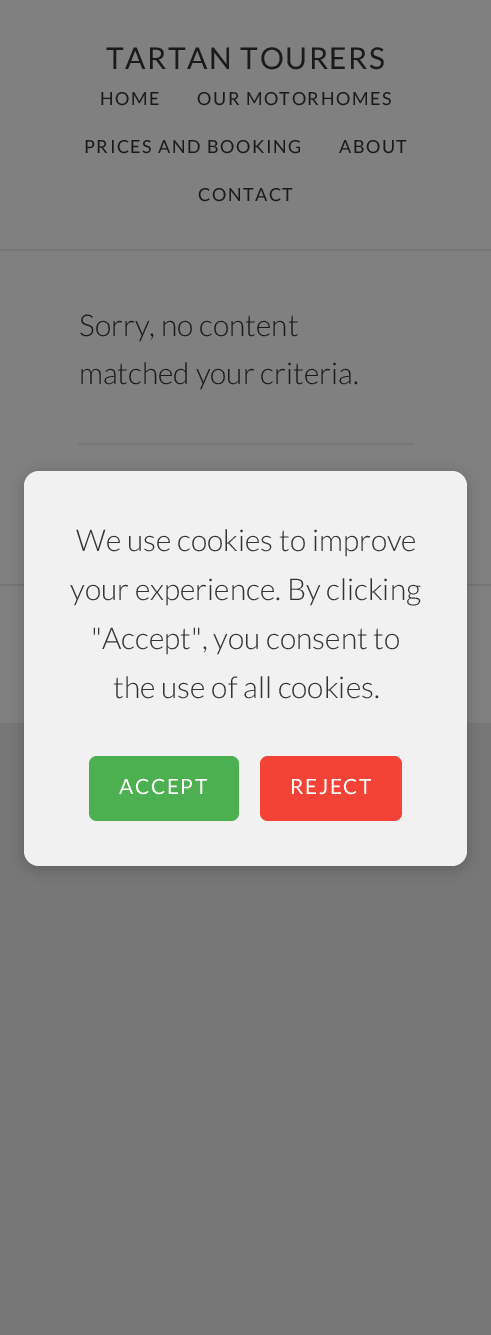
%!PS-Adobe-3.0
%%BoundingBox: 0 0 491 1335
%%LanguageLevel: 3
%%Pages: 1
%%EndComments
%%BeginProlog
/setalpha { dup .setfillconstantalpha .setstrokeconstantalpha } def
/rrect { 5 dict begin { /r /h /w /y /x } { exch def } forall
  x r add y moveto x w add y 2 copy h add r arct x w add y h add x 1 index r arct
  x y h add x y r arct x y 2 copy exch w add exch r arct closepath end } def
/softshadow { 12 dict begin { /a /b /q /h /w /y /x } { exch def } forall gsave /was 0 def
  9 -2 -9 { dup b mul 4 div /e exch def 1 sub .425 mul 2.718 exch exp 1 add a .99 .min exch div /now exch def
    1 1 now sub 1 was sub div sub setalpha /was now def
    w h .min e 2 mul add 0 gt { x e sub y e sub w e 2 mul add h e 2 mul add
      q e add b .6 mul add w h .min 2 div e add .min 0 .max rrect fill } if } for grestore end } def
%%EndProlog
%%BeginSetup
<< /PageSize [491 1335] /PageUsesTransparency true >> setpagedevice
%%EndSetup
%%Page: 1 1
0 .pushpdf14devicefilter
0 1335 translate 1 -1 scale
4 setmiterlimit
0.467 setgray
0 0 491 1335 rectfill
0.502 setgray
0 0 491 723 rectfill
0.467 setgray
0 249 491 2 rectfill
78 443 336 2 rectfill
0 584 491 2 rectfill
0 setgray
24 474 443 395 15 7.5 0.2 softshadow
0.945 setgray
24 471 443 395 15 rrect fill
0.298 0.686 0.314 setrgbcolor
89 756 150 65 8 rrect fill
0.957 0.263 0.212 setrgbcolor
260 756 142 65 8 rrect fill
/Lato-Regular [30 0 0 -30 0 0] selectfont
0.102 setgray
106 69 moveto 1.5 0 (TARTAN TOURERS) ashow
/Lato-Regular [18 0 0 -18 0 0] selectfont
100 105 moveto 1.5 0 (HOME) ashow
197 105 moveto 1.5 0 (OUR MOTORHOMES) ashow
84 153 moveto 1.5 0 (PRICES AND BOOKING) ashow
339 153 moveto 1.5 0 (ABOUT) ashow
198 201 moveto 1.5 0 (CONTACT) ashow
/Lato-Light [30 0 0 -30 0 0] selectfont
79 336 moveto (Sorry, no content) show
79 384 moveto (matched your criteria.) show
0.2 setgray
76 551 moveto (We use cookies to improve) show
70 600 moveto (your experience. By clicking) show
91 649 moveto ("Accept", you consent to) show
113 698 moveto (the use of all cookies.) show
/Lato-Regular [21 0 0 -21 0 0] selectfont
1 setgray
119 794 moveto 1.5 0 (ACCEPT) ashow
290 794 moveto 1.5 0 (REJECT) ashow
.poppdf14devicefilter showpage
%%EOF
